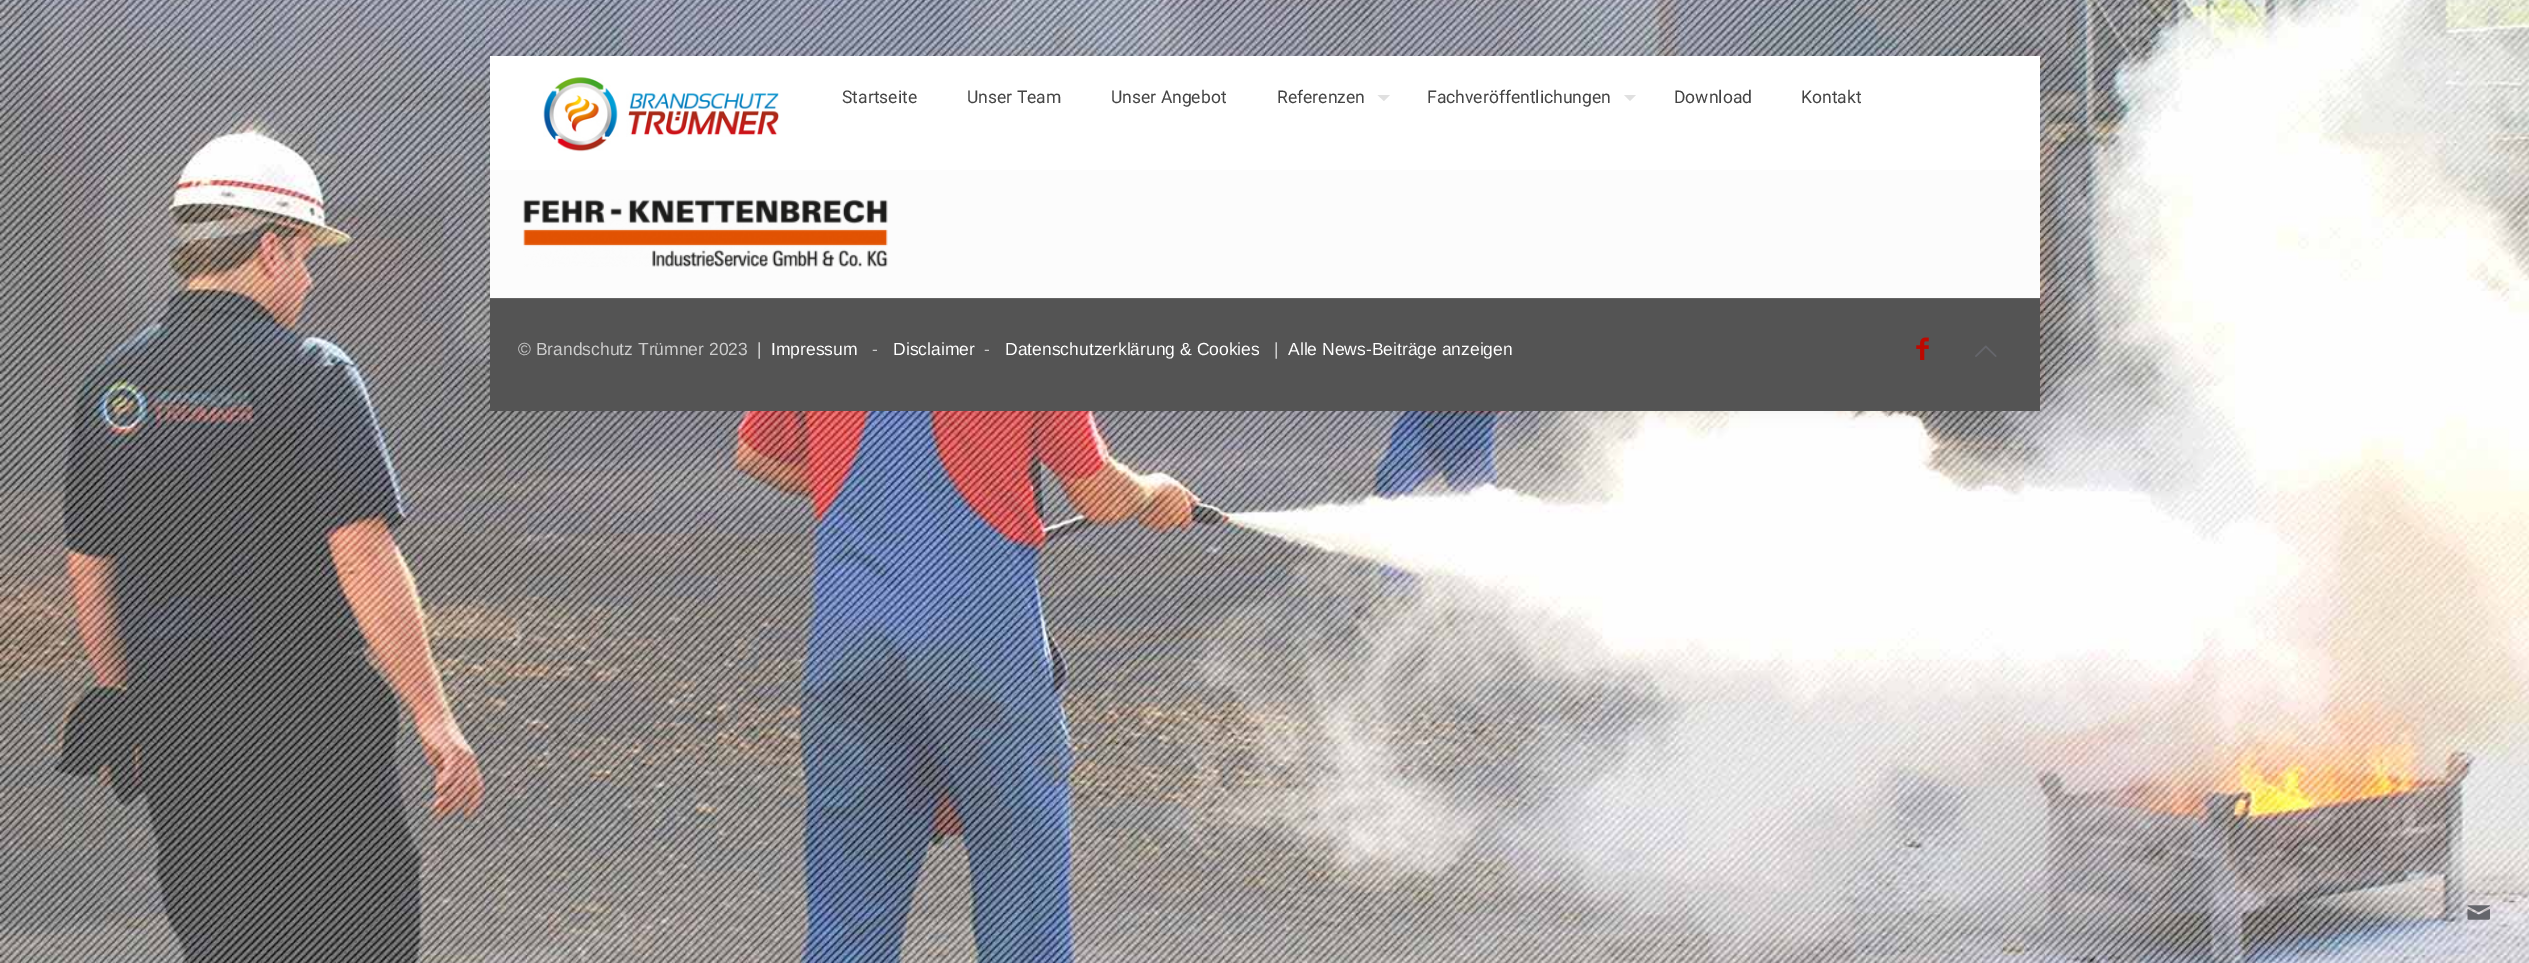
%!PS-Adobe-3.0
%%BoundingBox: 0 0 2529 963
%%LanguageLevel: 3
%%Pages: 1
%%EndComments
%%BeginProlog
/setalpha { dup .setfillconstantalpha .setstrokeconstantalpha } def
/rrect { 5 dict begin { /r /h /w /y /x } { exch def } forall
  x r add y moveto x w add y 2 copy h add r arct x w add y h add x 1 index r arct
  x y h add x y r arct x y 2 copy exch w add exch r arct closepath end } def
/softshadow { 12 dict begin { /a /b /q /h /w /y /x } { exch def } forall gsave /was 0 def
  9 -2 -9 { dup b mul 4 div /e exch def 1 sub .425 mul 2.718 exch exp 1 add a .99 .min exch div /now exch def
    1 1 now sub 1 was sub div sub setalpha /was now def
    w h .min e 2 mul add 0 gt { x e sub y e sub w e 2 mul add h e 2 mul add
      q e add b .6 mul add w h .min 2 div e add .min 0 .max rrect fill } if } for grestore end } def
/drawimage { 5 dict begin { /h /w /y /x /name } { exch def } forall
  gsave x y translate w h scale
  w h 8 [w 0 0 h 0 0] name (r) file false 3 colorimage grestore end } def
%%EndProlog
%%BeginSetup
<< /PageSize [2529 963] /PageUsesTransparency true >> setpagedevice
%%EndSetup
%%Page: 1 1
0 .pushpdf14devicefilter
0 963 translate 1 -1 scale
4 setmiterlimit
1 setgray
0 0 2529 963 rectfill
(images/1.raw) 0 0 2529 963 drawimage
0 setgray
490 56 1550 355 0 9.5 0.06 softshadow
0.988 setgray
490 170 1550 128 rectfill
1 setgray
490 56 1550 114 rectfill
(images/2.raw) 543 77 236 75 drawimage
0.878 setgray
newpath 1377.5 95 moveto 1390 95 lineto 1384 101 lineto closepath fill
newpath 1624 95 moveto 1636 95 lineto 1630 101 lineto closepath fill
(images/3.raw) 523 199 365 68 drawimage
0.329 setgray
490 299 1550 112 rectfill
0.396 setgray
490 298 1550 1 rectfill
(images/4.raw) 1916 337 13 23 drawimage
(images/5.raw) 1975 345 22 12 drawimage
(images/6.raw) 2467 905 23 15 drawimage
/Roboto-Regular [17.5 0 0 -17.5 0 0] selectfont
0.267 setgray
842 103 moveto (Startseite) show
967 103 moveto (Unser Team) show
1111 103 moveto (Unser Angebot) show
1277 103 moveto (Referenzen) show
1427 103 moveto (Fachveröffentlichungen) show
1674 103 moveto (Download) show
1801 103 moveto (Kontakt) show
/LiberationSans-Regular [17.5 0 0 -17.5 0 0] selectfont
0.8 setgray
518 355 moveto (© Brandschutz Trümner 2023  |) show
1 setgray
771 355 moveto (Impressum) show
0.8 setgray
872 355 moveto (-) show
1 setgray
893 355 moveto (Disclaimer) show
0.8 setgray
984 355 moveto (-) show
1 setgray
1005 355 moveto (Datenschutzerklärung & Cookies) show
0.8 setgray
1274 355 moveto (|) show
1 setgray
1288 355 moveto (Alle News-Beiträge anzeigen) show
.poppdf14devicefilter showpage
%%EOF
